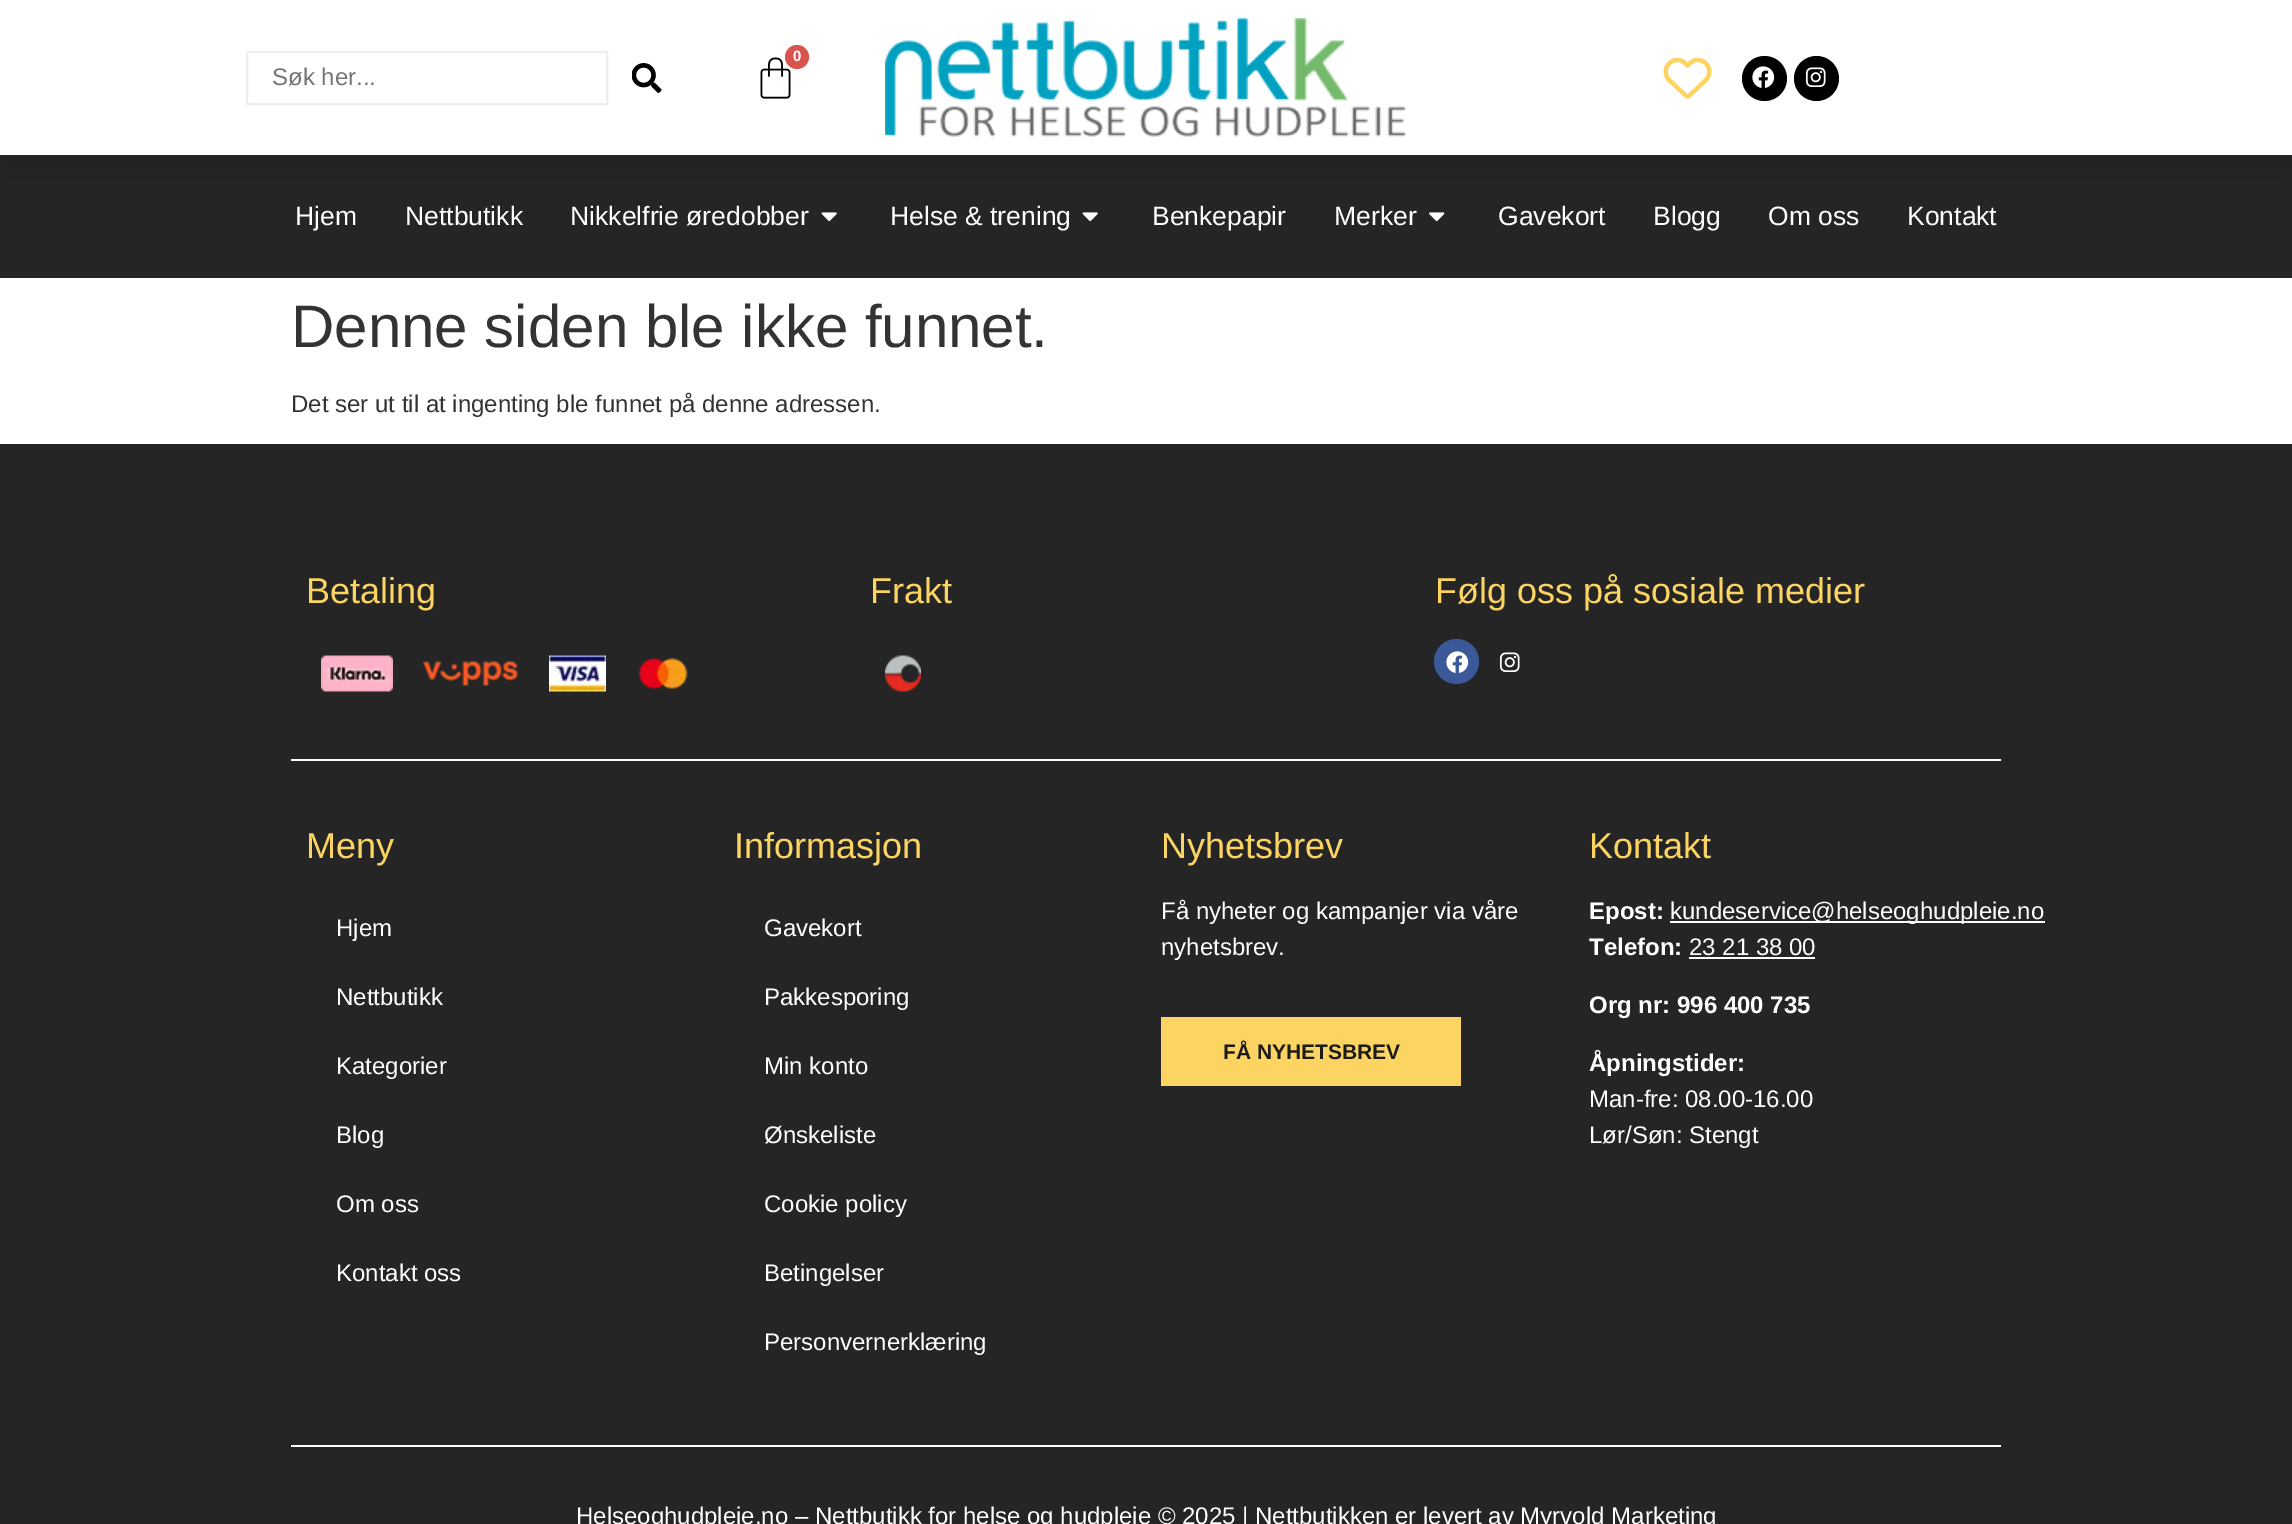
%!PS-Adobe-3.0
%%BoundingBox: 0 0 2292 1524
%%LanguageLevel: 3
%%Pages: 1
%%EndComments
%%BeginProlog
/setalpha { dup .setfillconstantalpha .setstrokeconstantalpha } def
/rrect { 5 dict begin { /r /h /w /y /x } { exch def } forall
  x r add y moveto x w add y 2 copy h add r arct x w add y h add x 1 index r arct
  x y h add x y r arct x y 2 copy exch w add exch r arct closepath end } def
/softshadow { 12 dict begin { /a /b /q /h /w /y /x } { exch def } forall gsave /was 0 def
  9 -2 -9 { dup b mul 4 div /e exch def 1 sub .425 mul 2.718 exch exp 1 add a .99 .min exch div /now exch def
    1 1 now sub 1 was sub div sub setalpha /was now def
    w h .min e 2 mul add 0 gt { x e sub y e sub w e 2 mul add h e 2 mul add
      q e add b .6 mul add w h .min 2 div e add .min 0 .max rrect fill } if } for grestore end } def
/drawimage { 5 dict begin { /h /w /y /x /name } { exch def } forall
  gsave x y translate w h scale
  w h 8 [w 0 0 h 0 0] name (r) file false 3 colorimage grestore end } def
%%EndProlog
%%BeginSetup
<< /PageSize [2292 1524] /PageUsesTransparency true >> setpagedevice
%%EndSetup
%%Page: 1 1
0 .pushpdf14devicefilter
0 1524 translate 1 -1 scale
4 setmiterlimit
1 setgray
0 0 2292 1524 rectfill
0.145 setgray
0 155 2292 123 rectfill
(images/7.raw) 821 212 16 10 drawimage
(images/7.raw) 1082 212 16 10 drawimage
(images/8.raw) 1429 212 16 10 drawimage
0 setgray
0 8 2292 154 0 22.5 0.1 softshadow
1 setgray
0 0 2292 155 rectfill
(images/1.raw) 760 57 31 42 drawimage
0.851 0.325 0.31 setrgbcolor
newpath 797 57 12 0 360 arc closepath fill
0.933 setgray
2 setlinewidth
247 52 360 52 rectstroke
(images/2.raw) 632 63 30 30 drawimage
(images/3.raw) 885 18 521 119 drawimage
(images/4.raw) 1663 57 49 42 drawimage
0 setgray
newpath 1764.5 78.5 22.5 0 360 arc closepath fill
(images/5.raw) 1752 66 23 22 drawimage
newpath 1816.5 78.5 22.5 0 360 arc closepath fill
(images/6.raw) 1805 67 21 20 drawimage
0.145 setgray
0 444 2292 1080 rectfill
(images/9.raw) 321 655 72 37 drawimage
(images/10.raw) 423 661 95 25 drawimage
(images/11.raw) 549 655 57 37 drawimage
(images/12.raw) 638 658 50 31 drawimage
(images/13.raw) 885 655 36 37 drawimage
0.231 0.349 0.596 setrgbcolor
newpath 1456.5 661.5 22.5 0 360 arc closepath fill
(images/14.raw) 1446 651 23 22 drawimage
(images/15.raw) 1499 652 21 20 drawimage
1 setgray
291 759 1710 2 rectfill
0.988 0.831 0.384 setrgbcolor
1161 1017 300 69 rectfill
1 setgray
1670 921 375 2 rectfill
1689 957 126 2 rectfill
291 1445 1710 2 rectfill
/LiberationSans-Bold [15 0 0 -15 0 0] selectfont
793 61 moveto (0) show
/LiberationSans-Regular [24 0 0 -24 0 0] selectfont
0.459 setgray
272 85 moveto (Søk her...) show
/LiberationSans-Regular [26.5 0 0 -26.5 0 0] selectfont
1 setgray
295 225 moveto (Hjem) show
405 225 moveto (Nettbutikk) show
570 225 moveto (Nikkelfrie øredobber) show
890 225 moveto (Helse & trening) show
1152 225 moveto (Benkepapir) show
1334 225 moveto (Merker) show
1498 225 moveto (Gavekort) show
1653 225 moveto (Blogg) show
1768 225 moveto (Om oss) show
1907 225 moveto (Kontakt) show
/LiberationSans-Regular [60 0 0 -60 0 0] selectfont
0.2 setgray
291 347 moveto (Denne siden ble ikke funnet.) show
/LiberationSans-Regular [24 0 0 -24 0 0] selectfont
291 412 moveto (Det ser ut til at ingenting ble funnet på denne adressen.) show
/LiberationSans-Regular [36 0 0 -36 0 0] selectfont
0.988 0.831 0.384 setrgbcolor
306 603 moveto (Betaling) show
870 603 moveto (Frakt) show
1435 603 moveto (Følg oss på sosiale medier) show
306 858 moveto (Meny) show
/LiberationSans-Regular [24 0 0 -24 0 0] selectfont
1 setgray
336 936 moveto (Hjem) show
336 1005 moveto (Nettbutikk) show
336 1074 moveto (Kategorier) show
336 1143 moveto (Blog) show
336 1212 moveto (Om oss) show
336 1281 moveto (Kontakt oss) show
/LiberationSans-Regular [36 0 0 -36 0 0] selectfont
0.988 0.831 0.384 setrgbcolor
734 858 moveto (Informasjon) show
/LiberationSans-Regular [24 0 0 -24 0 0] selectfont
1 setgray
764 936 moveto (Gavekort) show
764 1005 moveto (Pakkesporing) show
764 1074 moveto (Min konto) show
764 1143 moveto (Ønskeliste) show
764 1212 moveto (Cookie policy) show
764 1281 moveto (Betingelser) show
764 1350 moveto (Personvernerklæring) show
/LiberationSans-Regular [36 0 0 -36 0 0] selectfont
0.988 0.831 0.384 setrgbcolor
1161 858 moveto (Nyhetsbrev) show
/LiberationSans-Regular [24 0 0 -24 0 0] selectfont
1 setgray
1161 919 moveto (Få nyheter og kampanjer via våre) show
1161 955 moveto (nyhetsbrev.) show
/LiberationSans-Bold [21 0 0 -21 0 0] selectfont
0.11 0.106 0.098 setrgbcolor
1223 1059 moveto (FÅ NYHETSBREV) show
/LiberationSans-Regular [36 0 0 -36 0 0] selectfont
0.988 0.831 0.384 setrgbcolor
1589 858 moveto (Kontakt) show
/LiberationSans-Bold [24 0 0 -24 0 0] selectfont
1 setgray
1589 919 moveto (Epost:) show
/LiberationSans-Regular [24 0 0 -24 0 0] selectfont
1670 919 moveto (kundeservice@helseoghudpleie.no) show
/LiberationSans-Bold [24 0 0 -24 0 0] selectfont
1589 955 moveto (Telefon:) show
/LiberationSans-Regular [24 0 0 -24 0 0] selectfont
1689 955 moveto (23 21 38 00) show
/LiberationSans-Bold [24 0 0 -24 0 0] selectfont
1589 1013 moveto (Org nr: 996 400 735) show
1589 1071 moveto (Åpningstider:) show
/LiberationSans-Regular [24 0 0 -24 0 0] selectfont
1589 1107 moveto (Man-fre: 08.00-16.00) show
1589 1143 moveto (Lør/Søn: Stengt) show
576 1524 moveto (Helseoghudpleie.no – Nettbutikk for helse og hudpleie © 2025 | Nettbutikken er levert av Myrvold Marketing) show
.poppdf14devicefilter showpage
%%EOF
